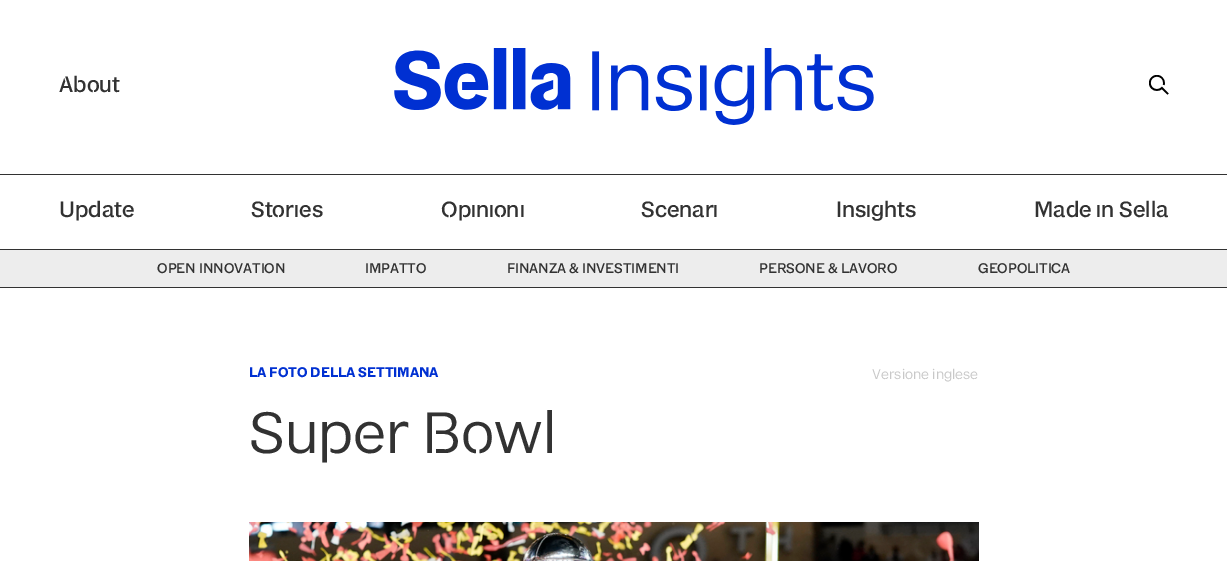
%!PS-Adobe-3.0
%%BoundingBox: 0 0 1227 561
%%LanguageLevel: 3
%%Pages: 1
%%EndComments
%%BeginProlog
/drawimage { 5 dict begin { /h /w /y /x /name } { exch def } forall
  gsave x y translate w h scale
  w h 8 [w 0 0 h 0 0] name (r) file false 3 colorimage grestore end } def
%%EndProlog
%%BeginSetup
<< /PageSize [1227 561] >> setpagedevice
%%EndSetup
%%Page: 1 1
0 561 translate 1 -1 scale
4 setmiterlimit
1 setgray
0 0 1227 561 rectfill
(images/1.raw) 394 48 480 77 drawimage
(images/2.raw) 1149 75 20 20 drawimage
0.196 setgray
0 174 1227 1 rectfill
0.929 setgray
0 250 1227 37 rectfill
0.196 setgray
0 249 1227 1 rectfill
0 287 1227 1 rectfill
(images/3.raw) 249 522 730 39 drawimage
/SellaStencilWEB-Medium [22 0 0 -22 0 0] selectfont
59 92 moveto (About) show
59 217 moveto (Update) show
251 217 moveto (Stories) show
441 217 moveto (Opinioni) show
641 217 moveto (Scenari) show
836 217 moveto (Insights) show
1034 217 moveto (Made in Sella) show
/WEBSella-Medium [14 0 0 -14 0 0] selectfont
157 273 moveto (OPEN INNOVATION) show
365 273 moveto (IMPATTO) show
507 273 moveto (FINANZA & INVESTIMENTI) show
759 273 moveto (PERSONE & LAVORO) show
978 273 moveto (GEOPOLITICA) show
/WEBSella-Bold [14 0 0 -14 0 0] selectfont
0 0.188 0.824 setrgbcolor
249 377 moveto (LA FOTO DELLA SETTIMANA) show
/WEBSella-Regular [14 0 0 -14 0 0] selectfont
0.784 setgray
872 379 moveto (Versione inglese) show
/SellaStencilWEB-Regular [58 0 0 -58 0 0] selectfont
0.196 setgray
249 453 moveto (Super Bowl) show
showpage
%%EOF
